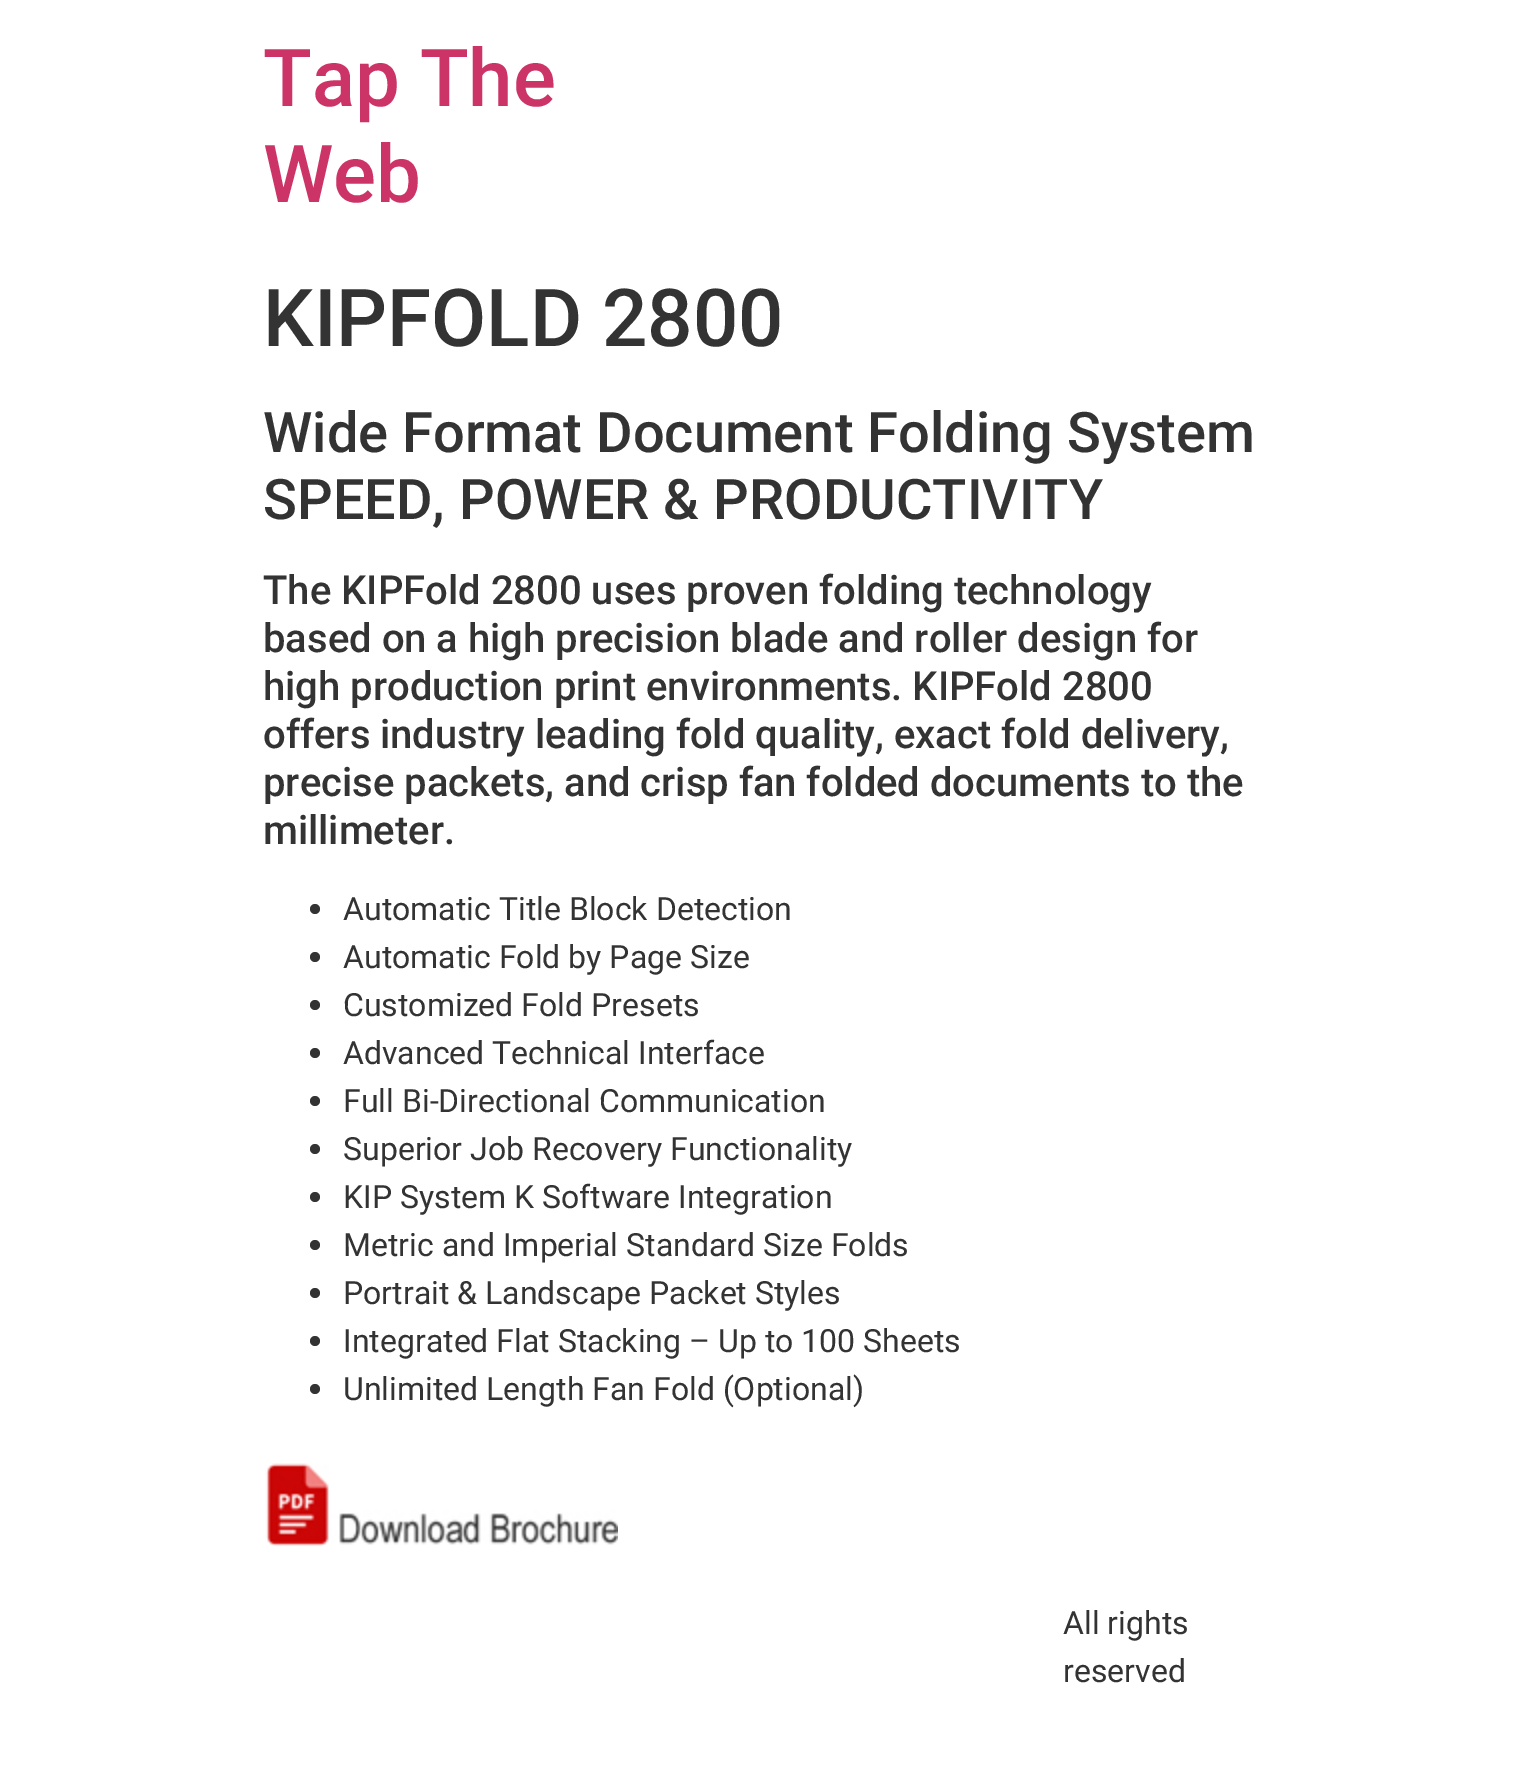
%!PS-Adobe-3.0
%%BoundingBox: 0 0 1526 1767
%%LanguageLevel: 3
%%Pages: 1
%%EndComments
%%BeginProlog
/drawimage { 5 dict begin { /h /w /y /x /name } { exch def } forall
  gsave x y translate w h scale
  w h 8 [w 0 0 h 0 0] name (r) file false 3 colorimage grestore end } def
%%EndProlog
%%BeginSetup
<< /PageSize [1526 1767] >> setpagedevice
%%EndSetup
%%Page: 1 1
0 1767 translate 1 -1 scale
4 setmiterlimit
1 setgray
0 0 1526 1767 rectfill
0.2 setgray
newpath 315 909 5 0 360 arc closepath fill
newpath 315 957 5 0 360 arc closepath fill
newpath 315 1005 5 0 360 arc closepath fill
newpath 315 1053 5 0 360 arc closepath fill
newpath 315 1101 5 0 360 arc closepath fill
newpath 315 1149 5 0 360 arc closepath fill
newpath 315 1197 5 0 360 arc closepath fill
newpath 315 1245 5 0 360 arc closepath fill
newpath 315 1293 5 0 360 arc closepath fill
newpath 315 1341 5 0 360 arc closepath fill
newpath 315 1389 5 0 360 arc closepath fill
(images/1.raw) 265 1463 353 83 drawimage
/Roboto-Medium [80 0 0 -80 0 0] selectfont
0.8 0.2 0.4 setrgbcolor
263 106 moveto (Tap The) show
263 202 moveto (Web) show
0.2 setgray
263 346 moveto (KIPFOLD 2800) show
/Roboto-Medium [56 0 0 -56 0 0] selectfont
263 452 moveto (Wide Format Document Folding System) show
263 519 moveto (SPEED, POWER & PRODUCTIVITY) show
/Roboto-Medium [40 0 0 -40 0 0] selectfont
263 604 moveto (The KIPFold 2800 uses proven folding technology) show
263 652 moveto (based on a high precision blade and roller design for) show
263 700 moveto (high production print environments. KIPFold 2800) show
263 748 moveto (offers industry leading fold quality, exact fold delivery,) show
263 796 moveto (precise packets, and crisp fan folded documents to the) show
263 844 moveto (millimeter.) show
/Roboto-Regular [32 0 0 -32 0 0] selectfont
343 920 moveto (Automatic Title Block Detection) show
343 968 moveto (Automatic Fold by Page Size) show
343 1016 moveto (Customized Fold Presets) show
343 1064 moveto (Advanced Technical Interface) show
343 1112 moveto (Full Bi-Directional Communication) show
343 1160 moveto (Superior Job Recovery Functionality) show
343 1208 moveto (KIP System K Software Integration) show
343 1256 moveto (Metric and Imperial Standard Size Folds) show
343 1304 moveto (Portrait & Landscape Packet Styles) show
343 1352 moveto (Integrated Flat Stacking – Up to 100 Sheets) show
343 1400 moveto (Unlimited Length Fan Fold \(Optional\)) show
1063 1634 moveto (All rights) show
1063 1682 moveto (reserved) show
showpage
%%EOF
